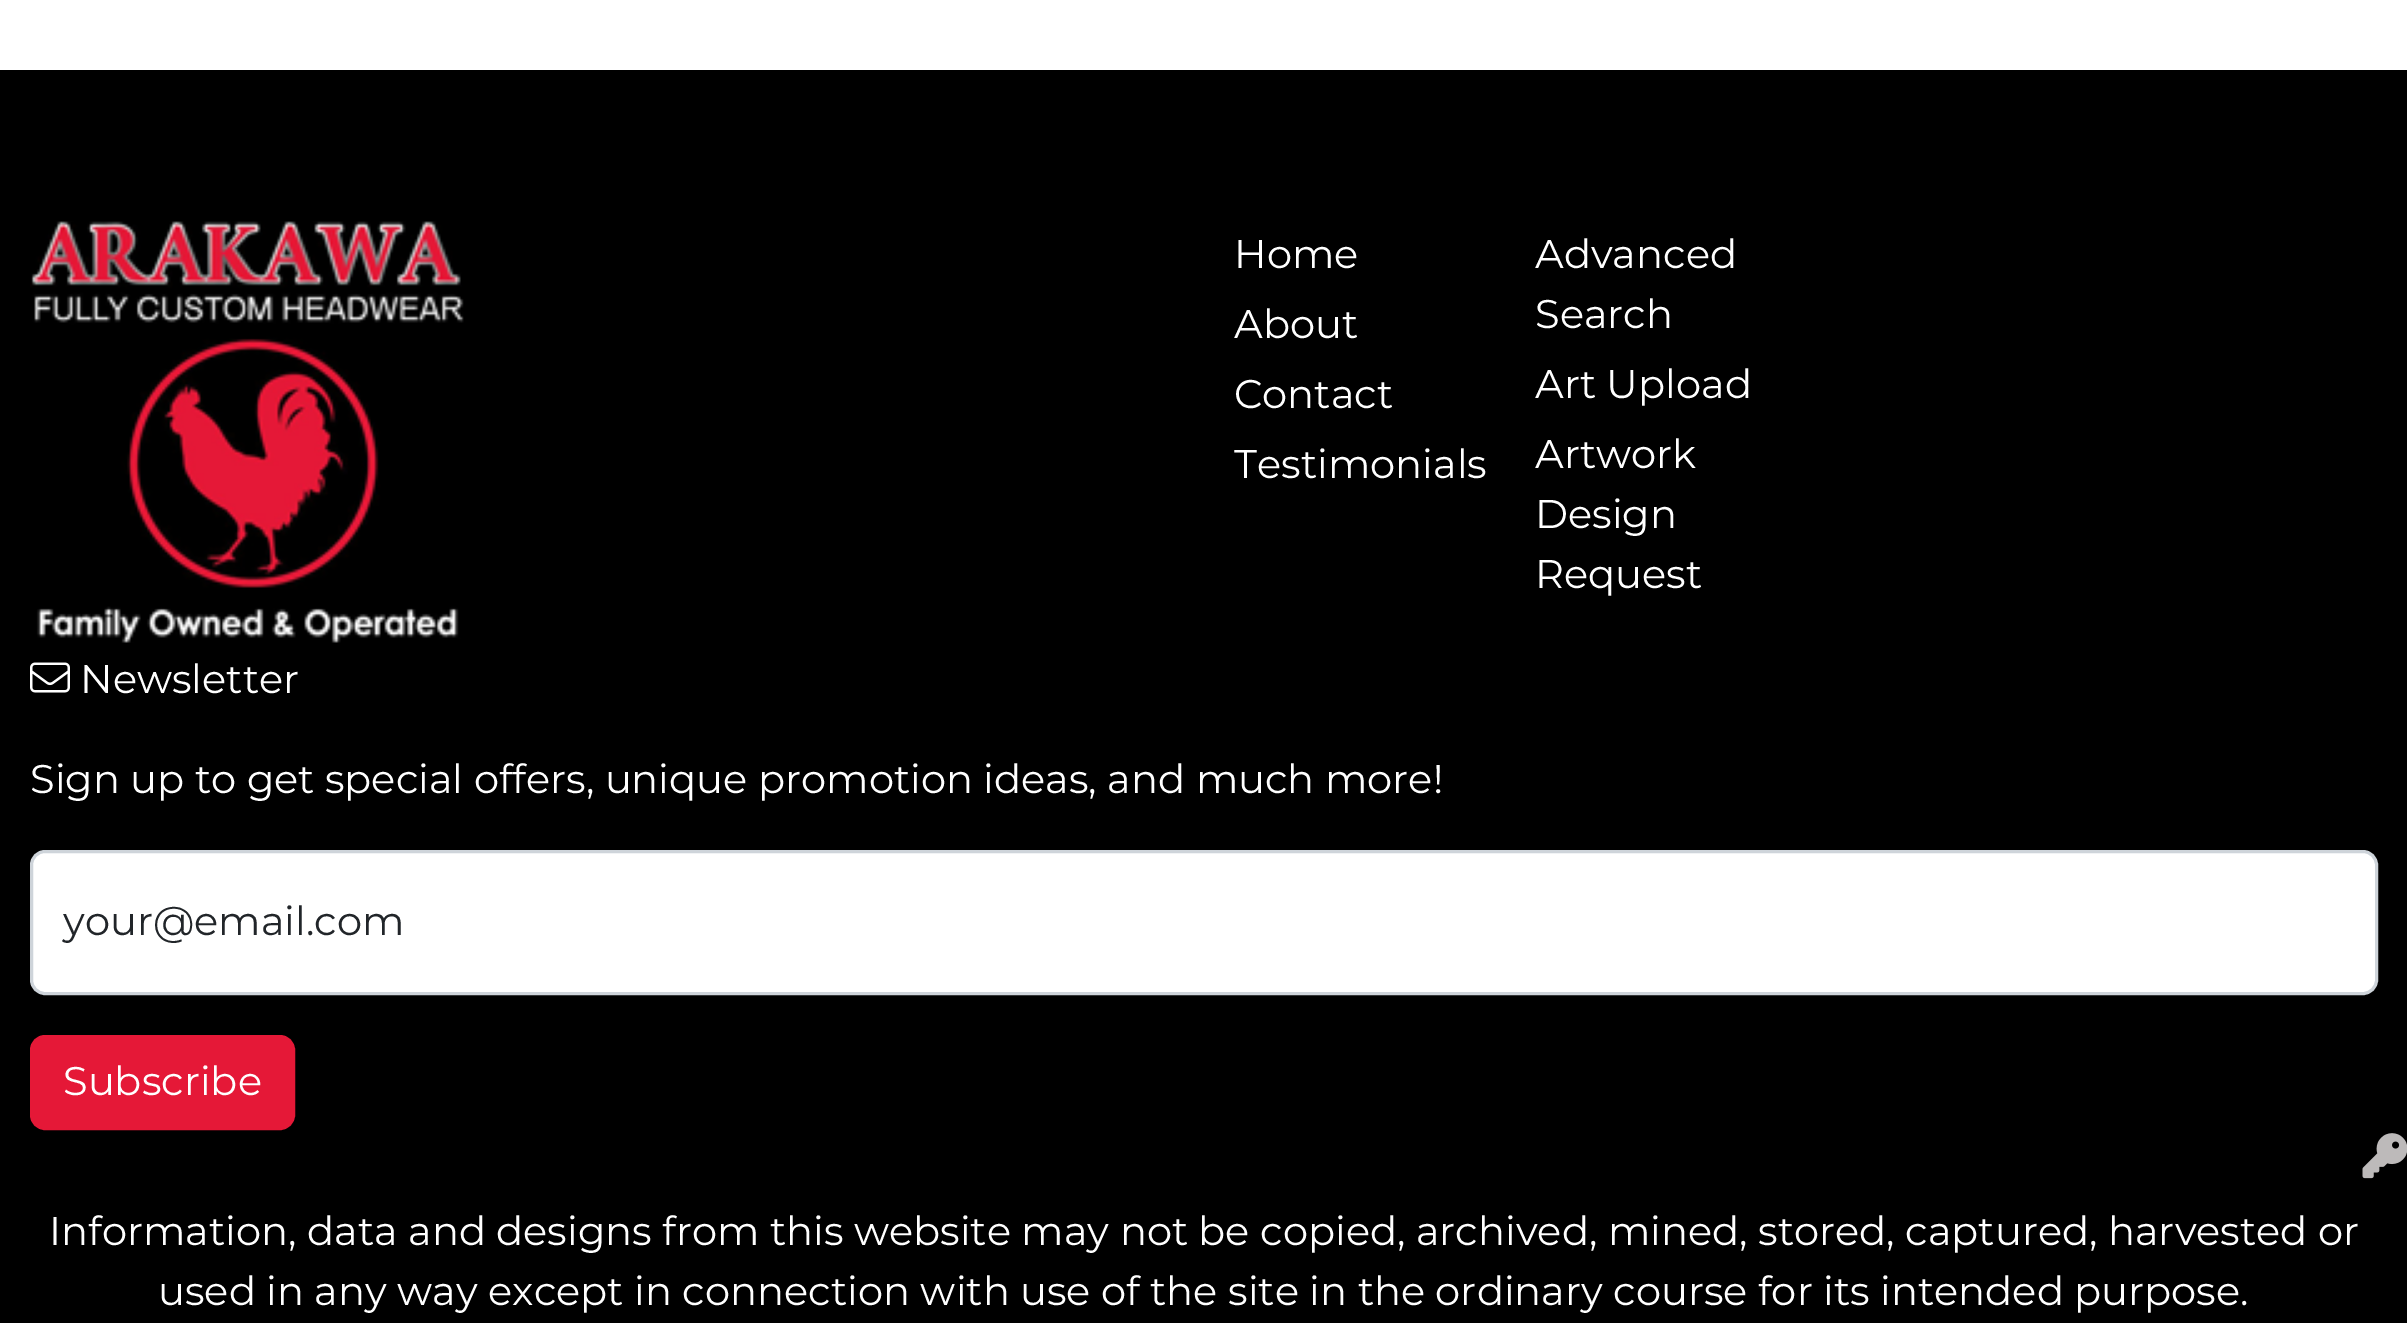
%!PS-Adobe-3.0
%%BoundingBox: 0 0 2407 1323
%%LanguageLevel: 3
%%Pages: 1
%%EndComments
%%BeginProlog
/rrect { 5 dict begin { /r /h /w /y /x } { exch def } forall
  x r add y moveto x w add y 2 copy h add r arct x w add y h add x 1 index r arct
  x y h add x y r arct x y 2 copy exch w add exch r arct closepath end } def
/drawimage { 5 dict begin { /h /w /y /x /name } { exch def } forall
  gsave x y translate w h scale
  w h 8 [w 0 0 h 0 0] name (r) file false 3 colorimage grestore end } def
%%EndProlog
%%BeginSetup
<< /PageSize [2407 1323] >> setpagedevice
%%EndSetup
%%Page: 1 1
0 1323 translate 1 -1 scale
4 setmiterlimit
1 setgray
0 0 2407 1323 rectfill
0 setgray
0 70 2407 1253 rectfill
(images/1.raw) 30 221 434 422 drawimage
(images/2.raw) 30 662 40 31 drawimage
1 setgray
31.5 851.5 2345 142 13.5 rrect gsave fill grestore
0.808 0.831 0.855 setrgbcolor
3 setlinewidth
stroke
0.898 0.094 0.216 setrgbcolor
31.5 1036.5 262 92 13.5 rrect gsave fill grestore
stroke
(images/3.raw) 2362 1133 45 46 drawimage
/Montserrat-Thin [40 0 0 -40 0 0] selectfont
1 setgray
1234 268 moveto (Home) show
1234 338 moveto (About) show
1234 408 moveto (Contact) show
1234 478 moveto (Testimonials) show
1535 268 moveto (Advanced) show
1535 328 moveto (Search) show
1535 398 moveto (Art Upload) show
1535 468 moveto (Artwork) show
1535 528 moveto (Design) show
1535 588 moveto (Request) show
80 693 moveto (Newsletter) show
30 793 moveto (Sign up to get special offers, unique promotion ideas, and much more!) show
0.129 0.145 0.161 setrgbcolor
63 935 moveto (your@email.com) show
1 setgray
63 1095 moveto (Subscribe) show
49 1245 moveto (Information, data and designs from this website may not be copied, archived, mined, stored, captured, harvested or) show
158 1305 moveto (used in any way except in connection with use of the site in the ordinary course for its intended purpose.) show
showpage
%%EOF
